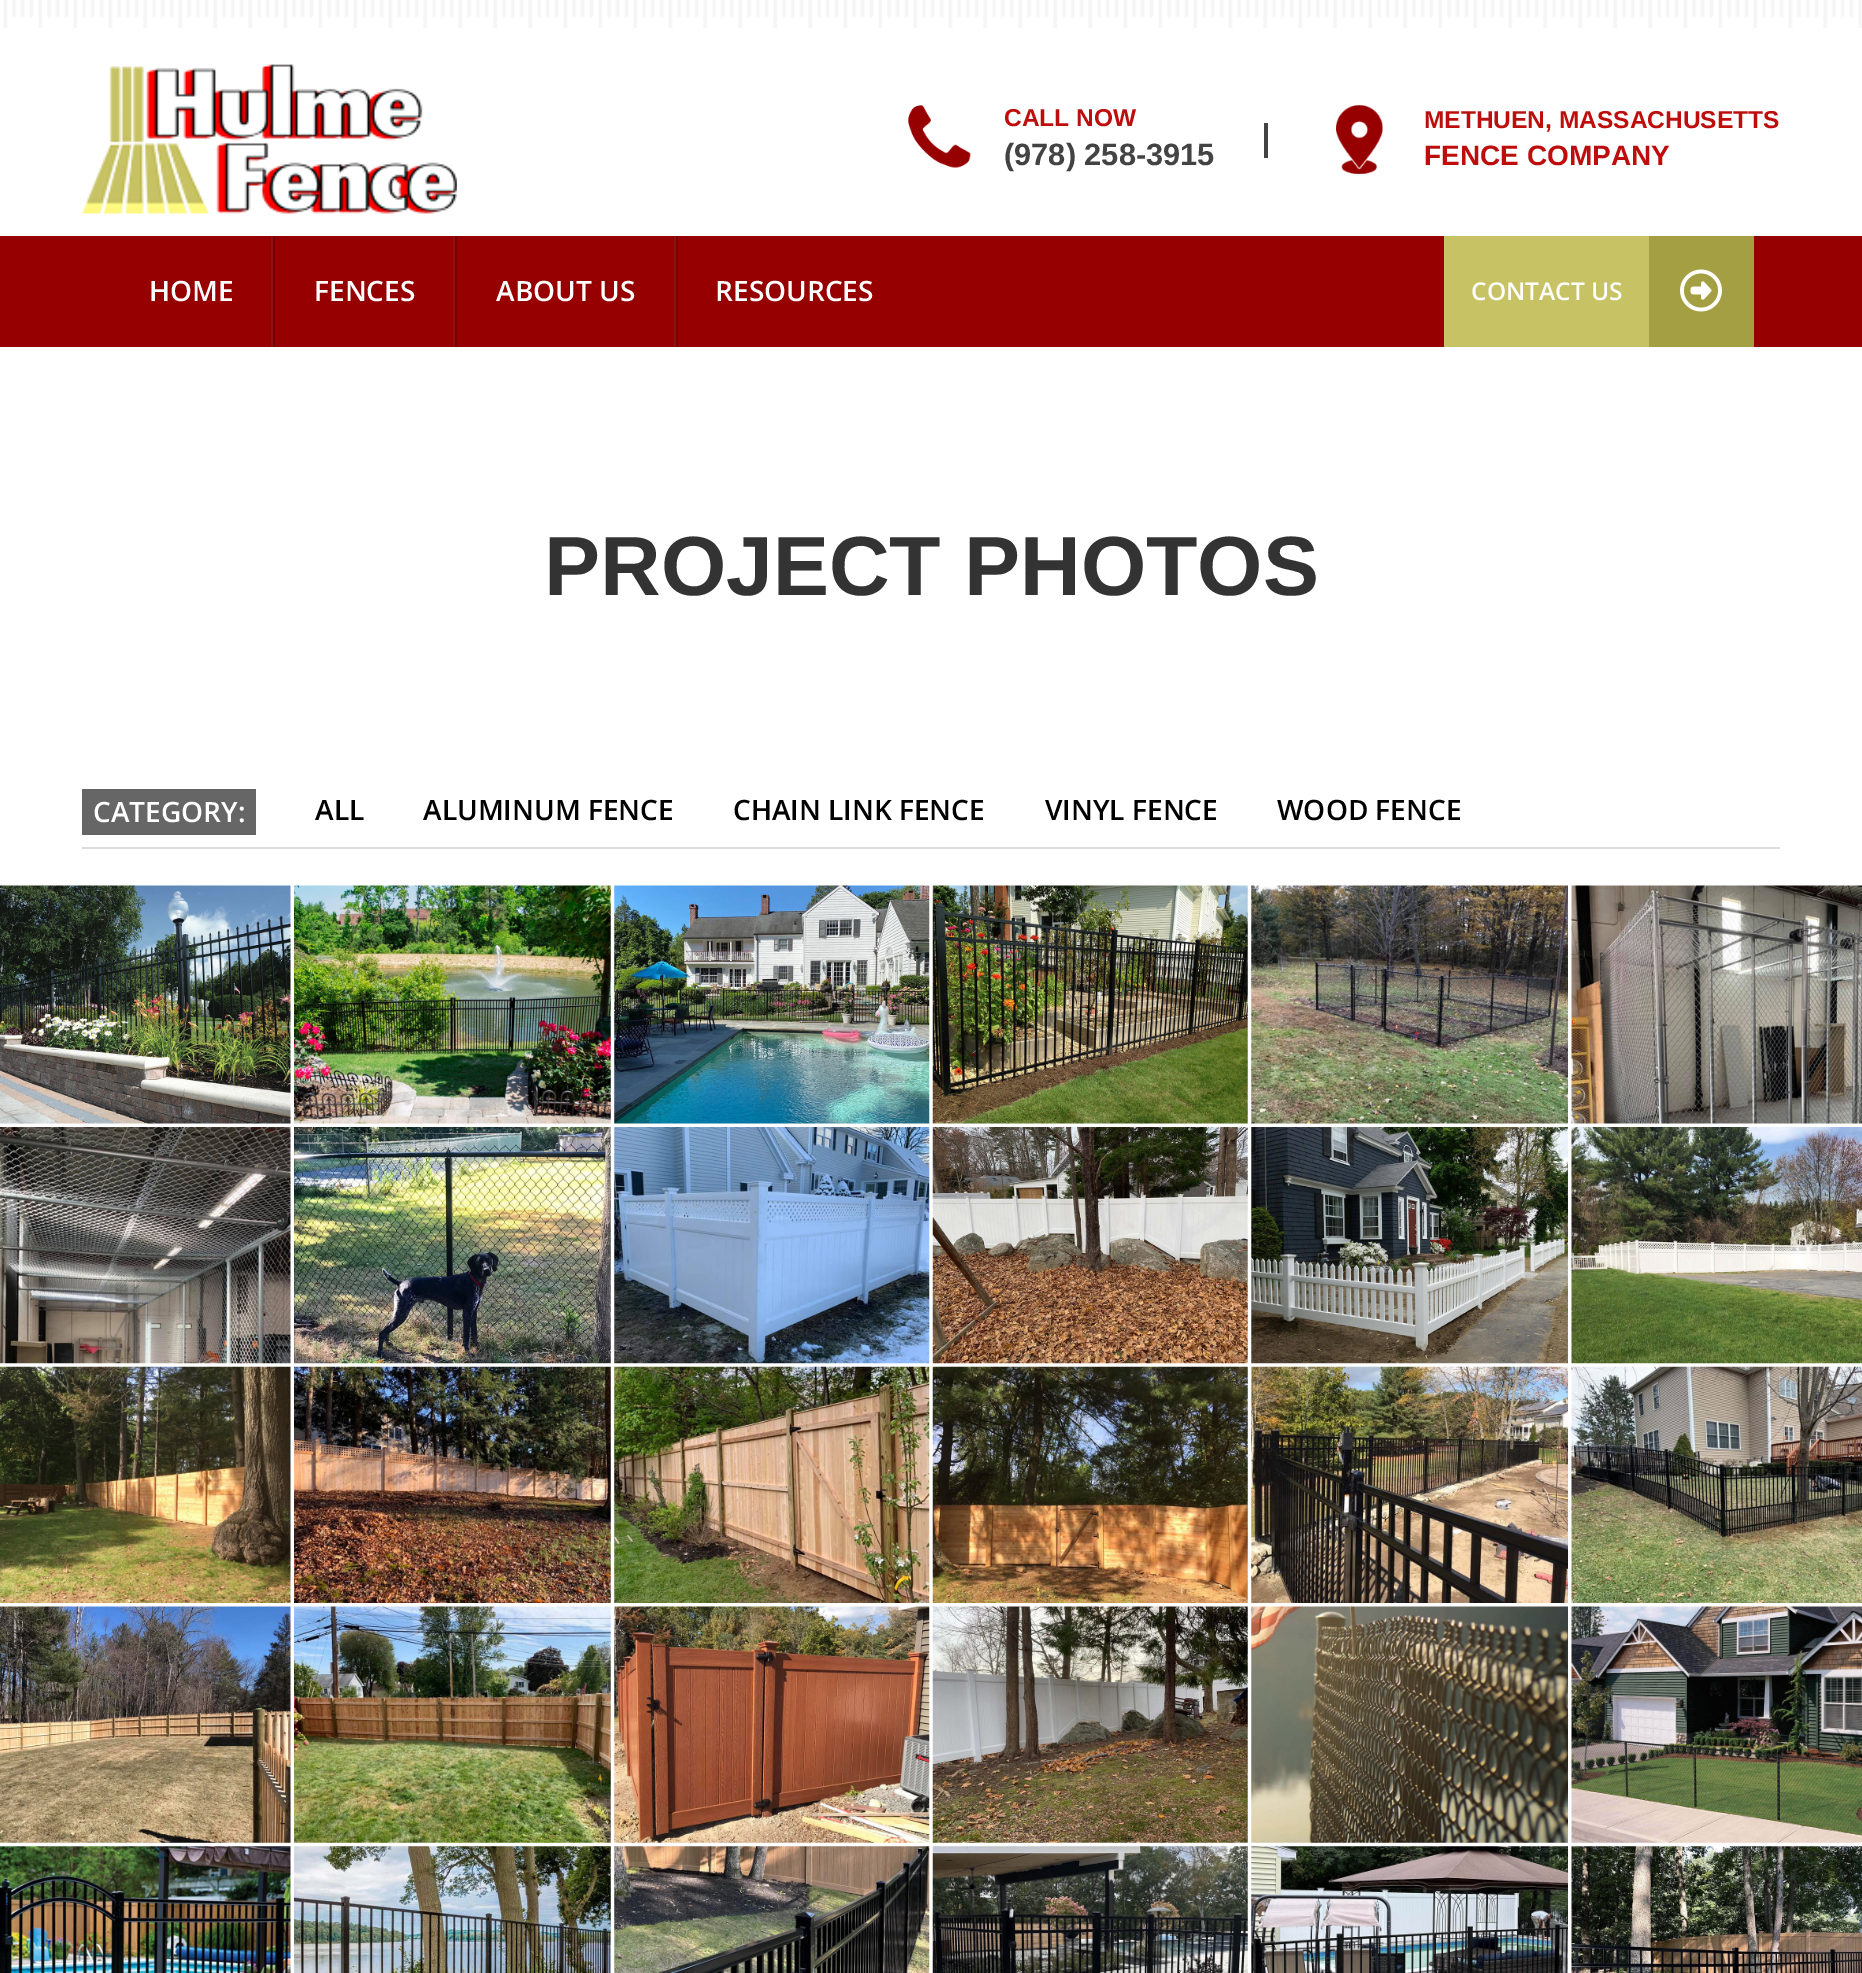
%!PS-Adobe-3.0
%%BoundingBox: 0 0 1862 1973
%%LanguageLevel: 3
%%Pages: 1
%%EndComments
%%BeginProlog
/drawimage { 5 dict begin { /h /w /y /x /name } { exch def } forall
  gsave x y translate w h scale
  w h 8 [w 0 0 h 0 0] name (r) file false 3 colorimage grestore end } def
%%EndProlog
%%BeginSetup
<< /PageSize [1862 1973] >> setpagedevice
%%EndSetup
%%Page: 1 1
0 1973 translate 1 -1 scale
4 setmiterlimit
1 setgray
0 0 1862 1973 rectfill
(images/1.raw) 3 0 1859 28 drawimage
(images/2.raw) 82 64 375 150 drawimage
(images/3.raw) 908 105 63 63 drawimage
0.263 setgray
1264 123 4 35 rectfill
(images/4.raw) 1336 105 47 69 drawimage
0.592 0 0 setrgbcolor
0 236 1862 111 rectfill
0.537 0.075 0.075 setrgbcolor
271 236 2 111 rectfill
0.471 0.012 0.012 setrgbcolor
273 236 2 111 rectfill
0.537 0.075 0.075 setrgbcolor
453 236 2 111 rectfill
0.471 0.012 0.012 setrgbcolor
455 236 2 111 rectfill
0.537 0.075 0.075 setrgbcolor
674 236 2 111 rectfill
0.471 0.012 0.012 setrgbcolor
676 236 2 111 rectfill
0.78 0.761 0.392 setrgbcolor
1444 236 205 111 rectfill
0.643 0.624 0.263 setrgbcolor
1649 236 105 111 rectfill
(images/5.raw) 1680 269 42 43 drawimage
0.867 setgray
82 847 1698 2 rectfill
0.4 setgray
82 789 174 46 rectfill
(images/6.raw) 0 885 291 239 drawimage
(images/7.raw) 294 885 317 239 drawimage
(images/8.raw) 614 885 316 239 drawimage
(images/9.raw) 932 885 316 239 drawimage
(images/10.raw) 1251 885 317 239 drawimage
(images/11.raw) 1571 885 291 239 drawimage
(images/12.raw) 0 1127 291 237 drawimage
(images/13.raw) 294 1127 317 237 drawimage
(images/14.raw) 614 1127 316 237 drawimage
(images/15.raw) 932 1127 316 237 drawimage
(images/16.raw) 1251 1127 317 237 drawimage
(images/17.raw) 1571 1127 291 237 drawimage
(images/18.raw) 0 1366 291 237 drawimage
(images/19.raw) 294 1366 317 237 drawimage
(images/20.raw) 614 1366 316 237 drawimage
(images/21.raw) 932 1366 316 237 drawimage
(images/22.raw) 1251 1366 317 237 drawimage
(images/23.raw) 1571 1366 291 237 drawimage
(images/24.raw) 0 1606 291 237 drawimage
(images/25.raw) 294 1606 317 237 drawimage
(images/26.raw) 614 1606 316 237 drawimage
(images/27.raw) 932 1606 316 237 drawimage
(images/28.raw) 1251 1606 317 237 drawimage
(images/29.raw) 1571 1606 291 237 drawimage
(images/30.raw) 0 1846 291 127 drawimage
(images/31.raw) 294 1846 317 127 drawimage
(images/32.raw) 614 1846 316 127 drawimage
(images/33.raw) 932 1846 316 127 drawimage
(images/34.raw) 1251 1846 317 127 drawimage
(images/35.raw) 1571 1846 291 127 drawimage
/LiberationSans-Bold [24.5 0 0 -24.5 0 0] selectfont
0.741 0.051 0.051 setrgbcolor
1004 126 moveto (CALL NOW) show
/LiberationSans-Bold [30.75 0 0 -30.75 0 0] selectfont
0.263 setgray
1004 165 moveto (\(978\) 258-3915) show
/LiberationSans-Bold [24.5 0 0 -24.5 0 0] selectfont
0.741 0.051 0.051 setrgbcolor
1424 128 moveto (METHUEN, MASSACHUSETTS) show
/LiberationSans-Bold [28 0 0 -28 0 0] selectfont
1424 165 moveto (FENCE COMPANY) show
/OpenSans-SemiBold [28 0 0 -28 0 0] selectfont
1 setgray
149 301 moveto (HOME) show
314 301 moveto (FENCES) show
496 301 moveto (ABOUT US) show
715 301 moveto (RESOURCES) show
/OpenSans-SemiBold [24.5 0 0 -24.5 0 0] selectfont
1471 300 moveto (CONTACT US) show
/LiberationSans-Bold [84 0 0 -84 0 0] selectfont
0.2 setgray
544 595 moveto (PROJECT PHOTOS) show
/OpenSans-SemiBold [28 0 0 -28 0 0] selectfont
1 setgray
93 822 moveto (CATEGORY:) show
0 setgray
315 820 moveto (ALL) show
423 820 moveto (ALUMINUM FENCE) show
733 820 moveto (CHAIN LINK FENCE) show
1045 820 moveto (VINYL FENCE) show
1277 820 moveto (WOOD FENCE) show
showpage
%%EOF
